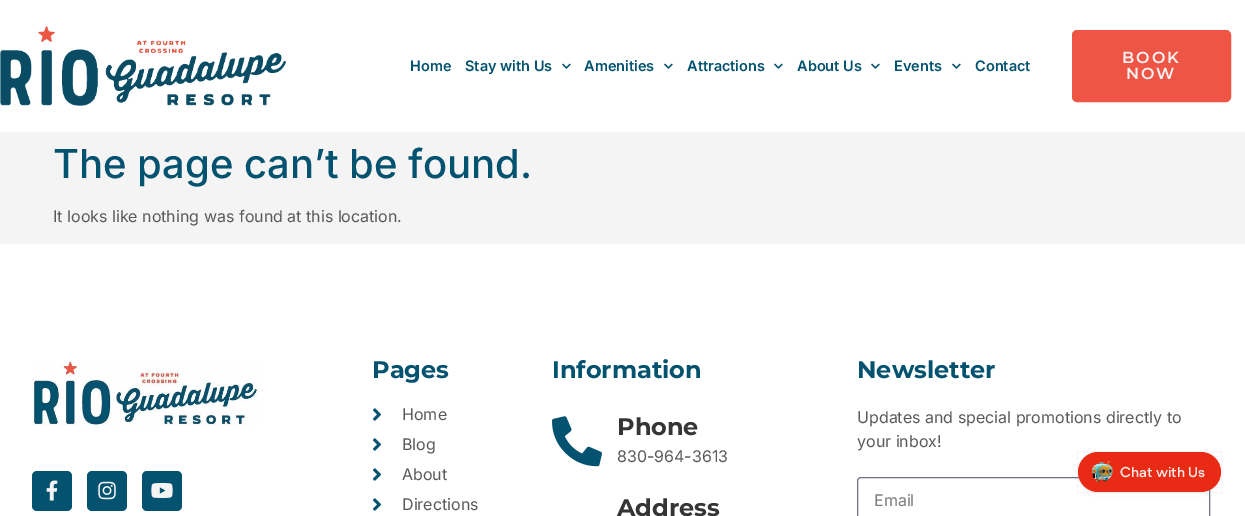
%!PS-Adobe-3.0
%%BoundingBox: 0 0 1245 516
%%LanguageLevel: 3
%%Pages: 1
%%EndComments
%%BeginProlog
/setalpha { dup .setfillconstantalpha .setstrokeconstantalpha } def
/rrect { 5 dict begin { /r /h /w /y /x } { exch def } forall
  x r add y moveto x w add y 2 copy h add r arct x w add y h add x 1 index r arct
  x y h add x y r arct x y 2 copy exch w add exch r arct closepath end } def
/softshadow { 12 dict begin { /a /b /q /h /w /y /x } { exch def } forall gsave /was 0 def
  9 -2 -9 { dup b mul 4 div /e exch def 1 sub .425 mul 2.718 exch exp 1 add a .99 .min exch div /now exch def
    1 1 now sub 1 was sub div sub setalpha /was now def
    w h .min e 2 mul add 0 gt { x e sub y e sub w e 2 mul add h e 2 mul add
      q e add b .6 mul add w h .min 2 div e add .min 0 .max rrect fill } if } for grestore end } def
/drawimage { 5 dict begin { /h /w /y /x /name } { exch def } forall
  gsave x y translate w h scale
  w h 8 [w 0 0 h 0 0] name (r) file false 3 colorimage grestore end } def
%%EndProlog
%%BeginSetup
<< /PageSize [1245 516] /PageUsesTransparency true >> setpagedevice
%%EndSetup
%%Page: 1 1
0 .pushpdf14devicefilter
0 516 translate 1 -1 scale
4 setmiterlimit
0.957 setgray
0 0 1245 516 rectfill
1 setgray
0 0 1245 132 rectfill
(images/1.raw) 0 26 286 80 drawimage
(images/2.raw) 562 63 9 6 drawimage
(images/2.raw) 664 63 9 6 drawimage
(images/2.raw) 774 63 9 6 drawimage
(images/2.raw) 871 63 9 6 drawimage
(images/2.raw) 952 63 9 6 drawimage
0.933 0.333 0.271 setrgbcolor
1073 31 157 70 4 rrect gsave fill grestore
2 setlinewidth
stroke
1 setgray
0 244 1245 272 rectfill
(images/3.raw) 32 360 226 66 drawimage
0.012 0.322 0.439 setrgbcolor
32 471 40 40 5 rrect fill
(images/4.raw) 46 480 12 21 drawimage
87 471 40 40 5 rrect fill
(images/5.raw) 98 481 18 19 drawimage
142 471 40 40 5 rrect fill
(images/6.raw) 151 483 22 15 drawimage
(images/7.raw) 373 408 8 13 drawimage
(images/7.raw) 373 438 8 13 drawimage
(images/7.raw) 373 468 8 13 drawimage
(images/7.raw) 373 498 8 13 drawimage
(images/8.raw) 552 416 50 51 drawimage
0.412 0.447 0.49 setrgbcolor
1 setlinewidth
857.5 477.5 352 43 3.5 rrect stroke
0.086 0.102 0.118 setrgbcolor
1084 462 131 28 14 4 0.08 softshadow
0.04 setalpha
1077.5 451.5 144 41 rectstroke
1 setalpha
0.914 0.169 0.086 setrgbcolor
1078 452 143 40 20 rrect fill
(images/9.raw) 1091 461 22 22 drawimage
/Inter-SemiBold [14.5 0 0 -14.5 0 0] selectfont
0.012 0.322 0.439 setrgbcolor
410 71 moveto (Home) show
465 71 moveto (Stay with Us) show
584 71 moveto (Amenities) show
687 71 moveto (Attractions) show
797 71 moveto (About Us) show
894 71 moveto (Events) show
975 71 moveto (Contact) show
/Montserrat-SemiBold [16 0 0 -16 0 0] selectfont
0.957 setgray
1122 63 moveto 2 0 (BOOK) ashow
1126 79 moveto 2 0 (NOW) ashow
/Inter-Medium [40 0 0 -40 0 0] selectfont
0.012 0.322 0.439 setrgbcolor
53 178 moveto (The page can’t be found.) show
/Inter-Regular [16 0 0 -16 0 0] selectfont
0.349 setgray
53 222 moveto (It looks like nothing was found at this location.) show
/Montserrat-Bold [24 0 0 -24 0 0] selectfont
0.012 0.322 0.439 setrgbcolor
372 378 moveto (Pages) show
/Inter-Regular [16 0 0 -16 0 0] selectfont
0.349 setgray
402 420 moveto (Home) show
402 450 moveto (Blog) show
402 480 moveto (About) show
402 510 moveto (Directions) show
/Montserrat-Bold [24 0 0 -24 0 0] selectfont
0.012 0.322 0.439 setrgbcolor
552 378 moveto (Information) show
0.208 setgray
617 435 moveto (Phone) show
/Inter-Regular [16 0 0 -16 0 0] selectfont
0.349 setgray
617 462 moveto (830-964-3613) show
/Montserrat-Bold [24 0 0 -24 0 0] selectfont
0.208 setgray
617 516 moveto (Address) show
0.012 0.322 0.439 setrgbcolor
857 378 moveto (Newsletter) show
/Inter-Regular [16 0 0 -16 0 0] selectfont
0.349 setgray
857 423 moveto (Updates and special promotions directly to) show
857 447 moveto (your inbox!) show
0.475 0.478 0.486 setrgbcolor
874 506 moveto (Email) show
/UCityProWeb-SemiBold [14 0 0 -14 0 0] selectfont
0.992 0.918 0.91 setrgbcolor
1120 477 moveto (Chat with Us) show
.poppdf14devicefilter showpage
%%EOF
